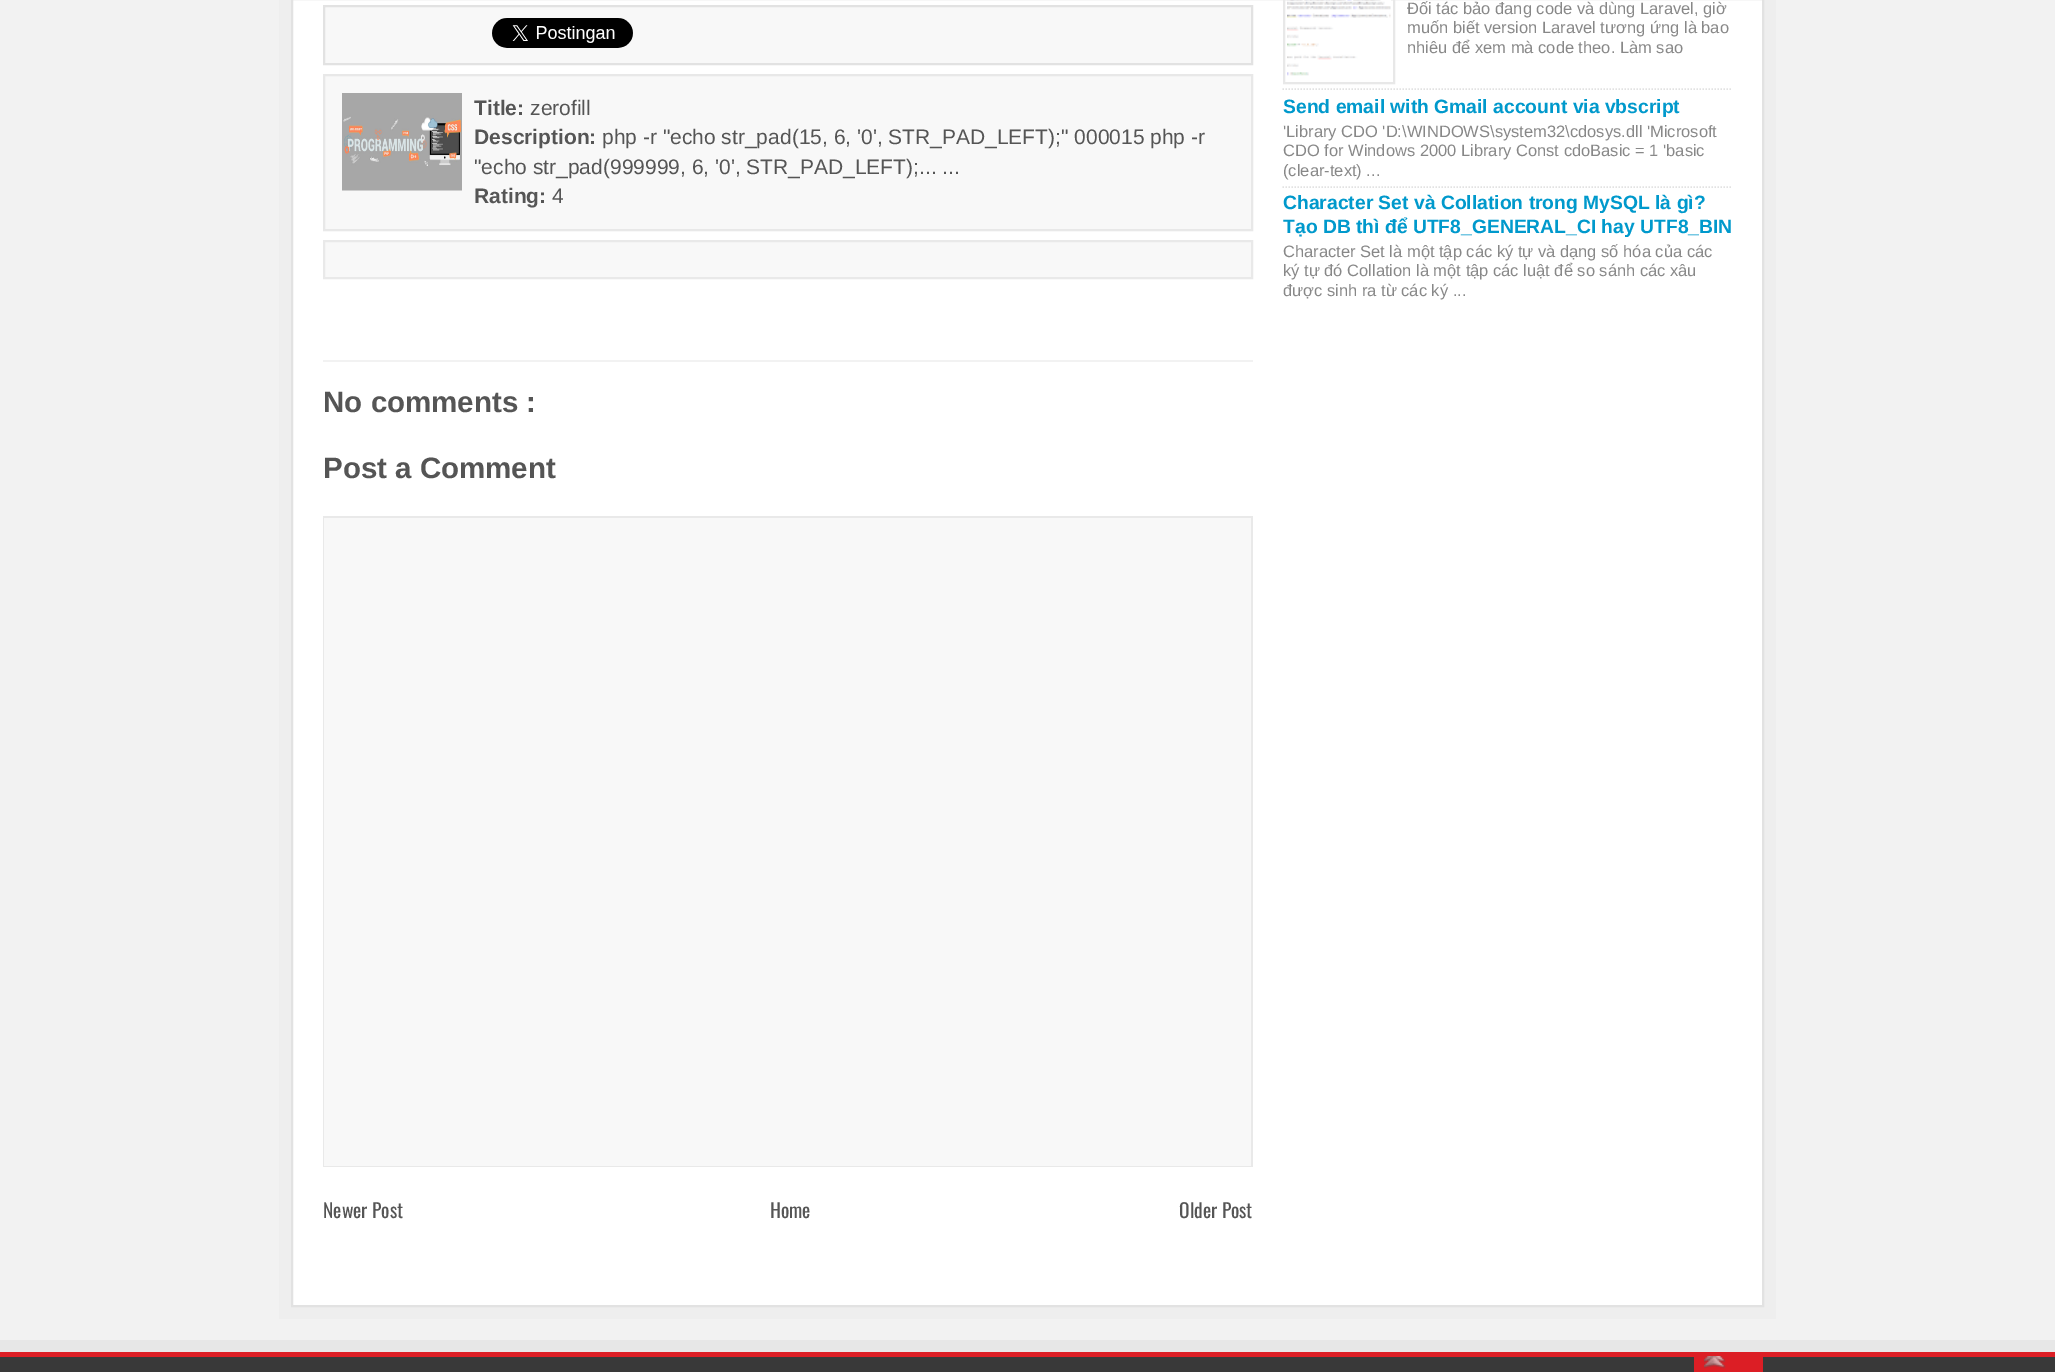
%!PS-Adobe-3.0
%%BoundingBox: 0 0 2055 1372
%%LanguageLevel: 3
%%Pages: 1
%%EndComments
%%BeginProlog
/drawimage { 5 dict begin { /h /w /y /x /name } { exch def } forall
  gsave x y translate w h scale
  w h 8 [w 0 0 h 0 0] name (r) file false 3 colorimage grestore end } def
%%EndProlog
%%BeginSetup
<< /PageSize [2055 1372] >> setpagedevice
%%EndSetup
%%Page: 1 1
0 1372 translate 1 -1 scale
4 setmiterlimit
0.949 setgray
0 0 2055 1372 rectfill
0.933 setgray
newpath 279 -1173 moveto 279 1319 lineto 1752 1319 lineto 1752 1306 lineto 291 1306 lineto 291 -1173 lineto closepath fill
newpath 303 1306 moveto 303 1319 lineto 1776 1319 lineto 1776 -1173 lineto 1764 -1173 lineto 1764 1306 lineto closepath fill
1 setgray
newpath 292 -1 moveto 1763 -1 lineto 1763 1306 lineto 292 1306 lineto closepath gsave fill grestore
0.886 setgray
2 setlinewidth
stroke
0.949 setgray
323 360 930 2 rectfill
0.973 setgray
newpath 324 6 moveto 1252 6 lineto 1252 64 lineto 324 64 lineto closepath gsave fill grestore
0.886 setgray
stroke
(images/1.raw) 492 18 141 30 drawimage
0.973 setgray
newpath 324 75 moveto 1252 75 lineto 1252 230 lineto 324 230 lineto closepath gsave fill grestore
0.91 setgray
stroke
(images/2.raw) 342 93 120 98 drawimage
0.973 setgray
newpath 324 241 moveto 1252 241 lineto 1252 278 lineto 324 278 lineto closepath gsave fill grestore
0.914 setgray
stroke
0.973 setgray
324 518 927 648 rectfill
gsave
323 516 930 651 rectclip
0.914 setgray
newpath 174 368 moveto 1401 368 lineto 1401 1316 lineto 174 1316 lineto closepath 321 514 moveto 1251 514 lineto 1251 1166 lineto 321 1166 lineto closepath eofill
newpath 174 368 moveto 1401 368 lineto 1401 1316 lineto 174 1316 lineto closepath 324 518 moveto 1254 518 lineto 1254 1168 lineto 324 1168 lineto closepath eofill
grestore
0.886 setgray
1.5 setlinewidth
[1.5 1.5] 0 setdash
newpath 1282.5 89 moveto 1732.5 89 lineto stroke
0.91 setgray
2 setlinewidth
[] 0 setdash
1284 -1 110 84 rectstroke
(images/3.raw) 1287 0 104 76 drawimage
0.886 setgray
1.5 setlinewidth
[1.5 1.5] 0 setdash
newpath 1282.5 187 moveto 1732.5 187 lineto stroke
0.906 setgray
0 1340 2055 12 rectfill
0.224 setgray
0 1357 2055 15 rectfill
0.863 0.118 0.145 setrgbcolor
0 1352 2055 5 rectfill
1694 1357 69 15 rectfill
(images/4.raw) 1704 1356 22 13 drawimage
/LiberationSans-Bold [21 0 0 -21 0 0] selectfont
0.333 setgray
474 115 moveto (Title:) show
/LiberationSans-Regular [21 0 0 -21 0 0] selectfont
530 115 moveto (zerofill) show
/LiberationSans-Bold [21 0 0 -21 0 0] selectfont
474 144 moveto (Description:) show
/LiberationSans-Regular [21 0 0 -21 0 0] selectfont
602 144 moveto (php -r "echo str_pad\(15, 6, '0', STR_PAD_LEFT\);" 000015 php -r) show
474 174 moveto ("echo str_pad\(999999, 6, '0', STR_PAD_LEFT\);... ...) show
/LiberationSans-Bold [21 0 0 -21 0 0] selectfont
474 203 moveto (Rating:) show
/LiberationSans-Regular [21 0 0 -21 0 0] selectfont
552 203 moveto (4) show
/LiberationSans-Bold [29.5 0 0 -29.5 0 0] selectfont
323 412 moveto (No comments :) show
323 478 moveto (Post a Comment) show
/Oswald-Regular [19.5 0 0 -19.5 0 0] selectfont
323 1218 moveto (Newer Post) show
770 1218 moveto (Home) show
1179 1218 moveto (Older Post) show
/LiberationSans-Regular [16.5 0 0 -16.5 0 0] selectfont
0.533 setgray
1407 14 moveto (Đối tác bảo đang code và dùng Laravel, giờ) show
1407 33 moveto (muốn biết version Laravel tương ứng là bao) show
1407 53 moveto (nhiêu để xem mà code theo. Làm sao) show
/LiberationSans-Bold [19.3 0 0 -19.3 0 0] selectfont
0 0.6 0.8 setrgbcolor
1283 113 moveto (Send email with Gmail account via vbscript) show
/LiberationSans-Regular [16.5 0 0 -16.5 0 0] selectfont
0.533 setgray
1283 137 moveto ('Library CDO 'D:\\WINDOWS\\system32\\cdosys.dll 'Microsoft) show
1283 156 moveto (CDO for Windows 2000 Library Const cdoBasic = 1 'basic) show
1283 176 moveto (\(clear-text\) ...) show
/LiberationSans-Bold [19.3 0 0 -19.3 0 0] selectfont
0 0.6 0.8 setrgbcolor
1283 209 moveto (Character Set và Collation trong MySQL là gì?) show
gsave
1283 0 450 321 rectclip
1283 233 moveto (Tạo DB thì để UTF8_GENERAL_CI hay UTF8_BIN) show
grestore
/LiberationSans-Regular [16.5 0 0 -16.5 0 0] selectfont
0.533 setgray
1283 257 moveto (Character Set là một tập các ký tự và dạng số hóa của các) show
1283 276 moveto (ký tự đó Collation là một tập các luật để so sánh các xâu) show
1283 296 moveto (được sinh ra từ các ký ...) show
showpage
%%EOF
